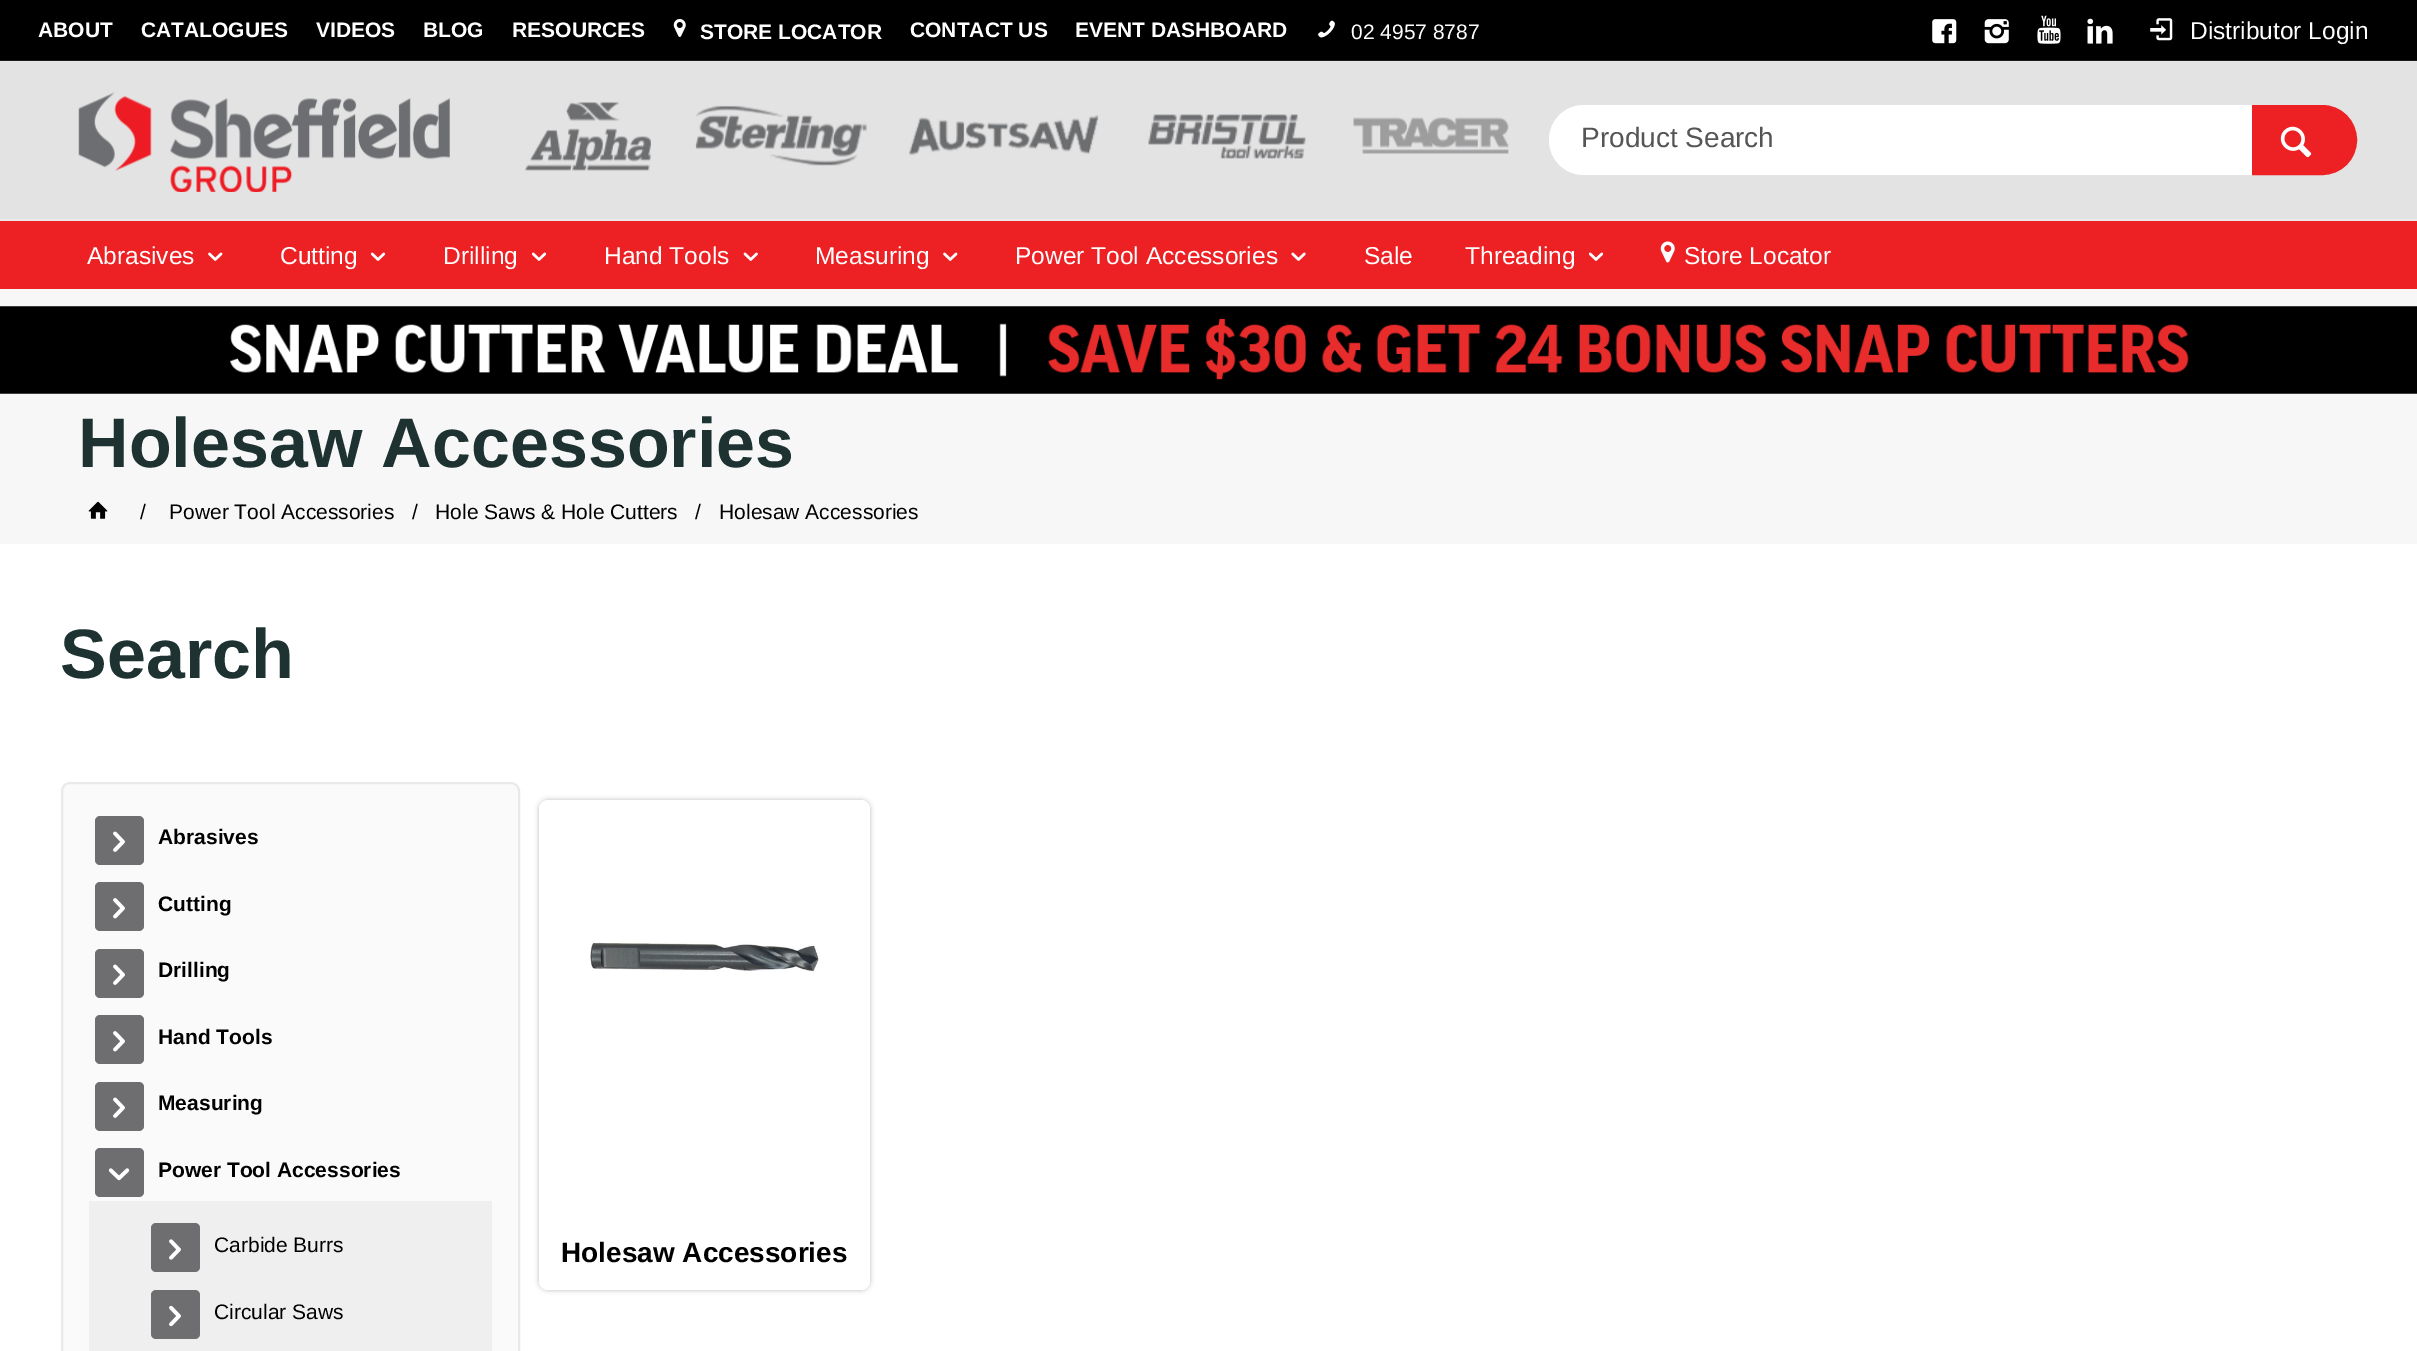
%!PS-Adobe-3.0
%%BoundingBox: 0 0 2417 1351
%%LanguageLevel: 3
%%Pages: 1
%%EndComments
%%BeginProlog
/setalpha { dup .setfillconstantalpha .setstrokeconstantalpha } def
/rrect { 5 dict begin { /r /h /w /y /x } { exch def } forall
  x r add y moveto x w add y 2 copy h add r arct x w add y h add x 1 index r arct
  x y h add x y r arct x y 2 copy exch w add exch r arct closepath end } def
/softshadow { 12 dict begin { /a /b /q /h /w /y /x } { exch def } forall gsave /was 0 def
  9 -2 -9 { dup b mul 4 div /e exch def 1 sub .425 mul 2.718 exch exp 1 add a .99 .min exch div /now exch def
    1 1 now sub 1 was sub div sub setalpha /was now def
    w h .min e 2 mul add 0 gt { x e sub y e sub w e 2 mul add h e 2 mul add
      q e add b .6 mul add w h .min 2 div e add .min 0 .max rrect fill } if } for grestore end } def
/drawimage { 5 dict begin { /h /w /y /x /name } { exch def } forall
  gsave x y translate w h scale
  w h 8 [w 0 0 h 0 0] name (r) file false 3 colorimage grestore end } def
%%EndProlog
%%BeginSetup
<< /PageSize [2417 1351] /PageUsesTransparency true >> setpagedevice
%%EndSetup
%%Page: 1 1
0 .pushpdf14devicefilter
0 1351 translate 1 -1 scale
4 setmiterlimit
1 setgray
0 0 2417 1351 rectfill
0 setgray
0 0 2417 60 rectfill
0.102 setgray
0 60 2417 1 rectfill
(images/1.raw) 673 19 13 18 drawimage
(images/2.raw) 1318 20 17 18 drawimage
(images/3.raw) 1932 19 25 25 drawimage
(images/4.raw) 1984 19 25 25 drawimage
(images/5.raw) 2037 15 24 29 drawimage
(images/6.raw) 2087 18 26 26 drawimage
(images/7.raw) 2150 18 23 23 drawimage
0.894 0.89 0.894 setrgbcolor
0 62 2417 157 rectfill
0.906 0.902 0.906 setrgbcolor
0 61 2417 1 rectfill
(images/8.raw) 78 92 372 100 drawimage
(images/9.raw) 525 102 126 69 drawimage
(images/10.raw) 695 105 172 61 drawimage
(images/11.raw) 909 114 190 42 drawimage
(images/12.raw) 1148 114 158 45 drawimage
(images/13.raw) 1353 117 156 37 drawimage
1 setgray
newpath 1584 105 moveto 2252 105 lineto 2252 175 lineto 1584 175 lineto 1564.5 175 1549 159.5 1549 140 curveto 1549 120.5 1564.5 105 1584 105 curveto closepath fill
0.929 0.125 0.141 setrgbcolor
newpath 2253 106 moveto 2322 106 lineto 2341 106 2356 121 2356 140 curveto 2356 159 2341 174 2322 174 curveto 2253 174 lineto closepath gsave fill grestore
2 setlinewidth
stroke
(images/14.raw) 2280 126 32 32 drawimage
0 221 2417 68 rectfill
0.922 0.914 0.91 setrgbcolor
0 219 2417 2 rectfill
(images/15.raw) 208 252 15 9 drawimage
(images/16.raw) 370 252 16 9 drawimage
(images/16.raw) 531 252 16 9 drawimage
(images/17.raw) 743 252 15 9 drawimage
(images/15.raw) 943 252 15 9 drawimage
(images/18.raw) 1291 252 15 9 drawimage
(images/16.raw) 1588 252 16 9 drawimage
(images/19.raw) 1660 241 15 22 drawimage
0.969 setgray
0 289 2417 255 rectfill
(images/20.raw) 0 306 2417 88 drawimage
(images/21.raw) 88 501 20 18 drawimage
0.98 setgray
62 783 457 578 8 rrect gsave fill grestore
0.922 0.914 0.91 setrgbcolor
stroke
0.431 0.431 0.439 setrgbcolor
95 816 49 49 5 rrect fill
(images/22.raw) 113 831 12 21 drawimage
95 882 49 49 5 rrect fill
(images/23.raw) 113 898 12 21 drawimage
95 949 49 49 5 rrect fill
(images/22.raw) 113 964 12 21 drawimage
95 1015 49 49 5 rrect fill
(images/23.raw) 113 1031 12 21 drawimage
95 1082 49 49 5 rrect fill
(images/22.raw) 113 1097 12 21 drawimage
95 1148 49 49 5 rrect fill
(images/24.raw) 108 1168 22 13 drawimage
0.937 setgray
89 1201 403 150 rectfill
0.431 0.431 0.439 setrgbcolor
151 1223 49 49 5 rrect fill
(images/25.raw) 169 1239 12 21 drawimage
151 1290 49 49 5 rrect fill
(images/26.raw) 169 1305 12 22 drawimage
0 setgray
539 800 331 490 9 2.5 0.25 softshadow
1 setgray
539 800 331 490 9 rrect fill
(images/27.raw) 590 941 230 31 drawimage
/LiberationSans-Bold [21 0 0 -21 0 0] selectfont
38 37 moveto (ABOUT) show
141 37 moveto (CATALOGUES) show
316 37 moveto (VIDEOS) show
423 37 moveto (BLOG) show
512 37 moveto (RESOURCES) show
700 39 moveto (STORE LOCATOR) show
910 37 moveto (CONTACT US) show
1075 37 moveto (EVENT DASHBOARD) show
/LiberationSans-Regular [21 0 0 -21 0 0] selectfont
1351 39 moveto (02 4957 8787) show
/LiberationSans-Regular [24.5 0 0 -24.5 0 0] selectfont
2190 39 moveto (Distributor Login) show
/LiberationSans-Regular [28 0 0 -28 0 0] selectfont
0.333 0.333 0.337 setrgbcolor
1581 147 moveto (Product Search) show
/LiberationSans-Regular [24.5 0 0 -24.5 0 0] selectfont
1 setgray
87 264 moveto (Abrasives) show
280 264 moveto (Cutting) show
443 264 moveto (Drilling) show
604 264 moveto (Hand Tools) show
815 264 moveto (Measuring) show
1015 264 moveto (Power Tool Accessories) show
1364 264 moveto (Sale) show
1465 264 moveto (Threading) show
1684 264 moveto (Store Locator) show
/LiberationSans-Bold [70 0 0 -70 0 0] selectfont
0.118 0.196 0.196 setrgbcolor
78 467 moveto (Holesaw Accessories) show
/LiberationSans-Regular [21 0 0 -21 0 0] selectfont
0 setgray
140 519 moveto (/) show
169 519 moveto (Power Tool Accessories) show
412 519 moveto (/) show
435 519 moveto (Hole Saws & Hole Cutters) show
695 519 moveto (/) show
719 519 moveto (Holesaw Accessories) show
/LiberationSans-Bold [70 0 0 -70 0 0] selectfont
0.118 0.196 0.196 setrgbcolor
60 678 moveto (Search) show
/LiberationSans-Bold [21 0 0 -21 0 0] selectfont
0 setgray
158 844 moveto (Abrasives) show
158 911 moveto (Cutting) show
158 977 moveto (Drilling) show
158 1044 moveto (Hand Tools) show
158 1110 moveto (Measuring) show
158 1177 moveto (Power Tool Accessories) show
/LiberationSans-Regular [21 0 0 -21 0 0] selectfont
214 1252 moveto (Carbide Burrs) show
214 1319 moveto (Circular Saws) show
/LiberationSans-Bold [28 0 0 -28 0 0] selectfont
561 1262 moveto (Holesaw Accessories) show
.poppdf14devicefilter showpage
%%EOF
